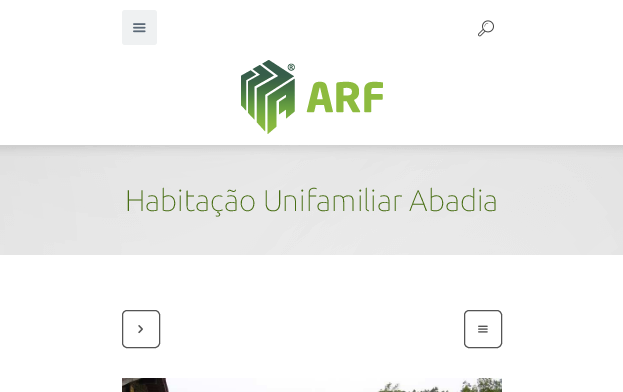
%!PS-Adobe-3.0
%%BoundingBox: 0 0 623 392
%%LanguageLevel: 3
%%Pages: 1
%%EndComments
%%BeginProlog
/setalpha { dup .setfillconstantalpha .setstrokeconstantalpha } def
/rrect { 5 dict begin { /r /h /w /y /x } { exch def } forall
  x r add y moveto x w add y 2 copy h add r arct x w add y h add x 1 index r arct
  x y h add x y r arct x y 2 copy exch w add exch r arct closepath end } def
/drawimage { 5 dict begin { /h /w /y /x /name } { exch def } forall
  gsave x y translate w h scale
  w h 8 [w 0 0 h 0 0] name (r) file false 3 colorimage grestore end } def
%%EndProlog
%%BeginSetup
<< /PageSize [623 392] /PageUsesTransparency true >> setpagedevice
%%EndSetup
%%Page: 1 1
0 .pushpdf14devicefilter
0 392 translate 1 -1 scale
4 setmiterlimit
1 setgray
0 0 623 392 rectfill
0.933 setgray
0 145 623 110 rectfill
0.937 0.945 0.949 setrgbcolor
122 10 35 35 3 rrect fill
(images/1.raw) 133 23 13 10 drawimage
(images/2.raw) 478 20 16 17 drawimage
(images/3.raw) 241 60 142 74 drawimage
(images/4.raw) 0 145 623 110 drawimage
0.329 setgray
122.5 310.5 37 37 4.5 rrect stroke
(images/5.raw) 138 325 5 9 drawimage
464.5 310.5 37 37 4.5 rrect stroke
(images/6.raw) 478 325 10 8 drawimage
(images/7.raw) 122 378 380 14 drawimage
0.15 setalpha
0 setgray
122 378 44 5 rectfill
/Ubuntu-Thin [30 0 0 -30 0 0] selectfont
1 setalpha
0.282 0.431 0.078 setrgbcolor
125 211 moveto (Habitação Unifamiliar Abadia) show
.poppdf14devicefilter showpage
%%EOF
